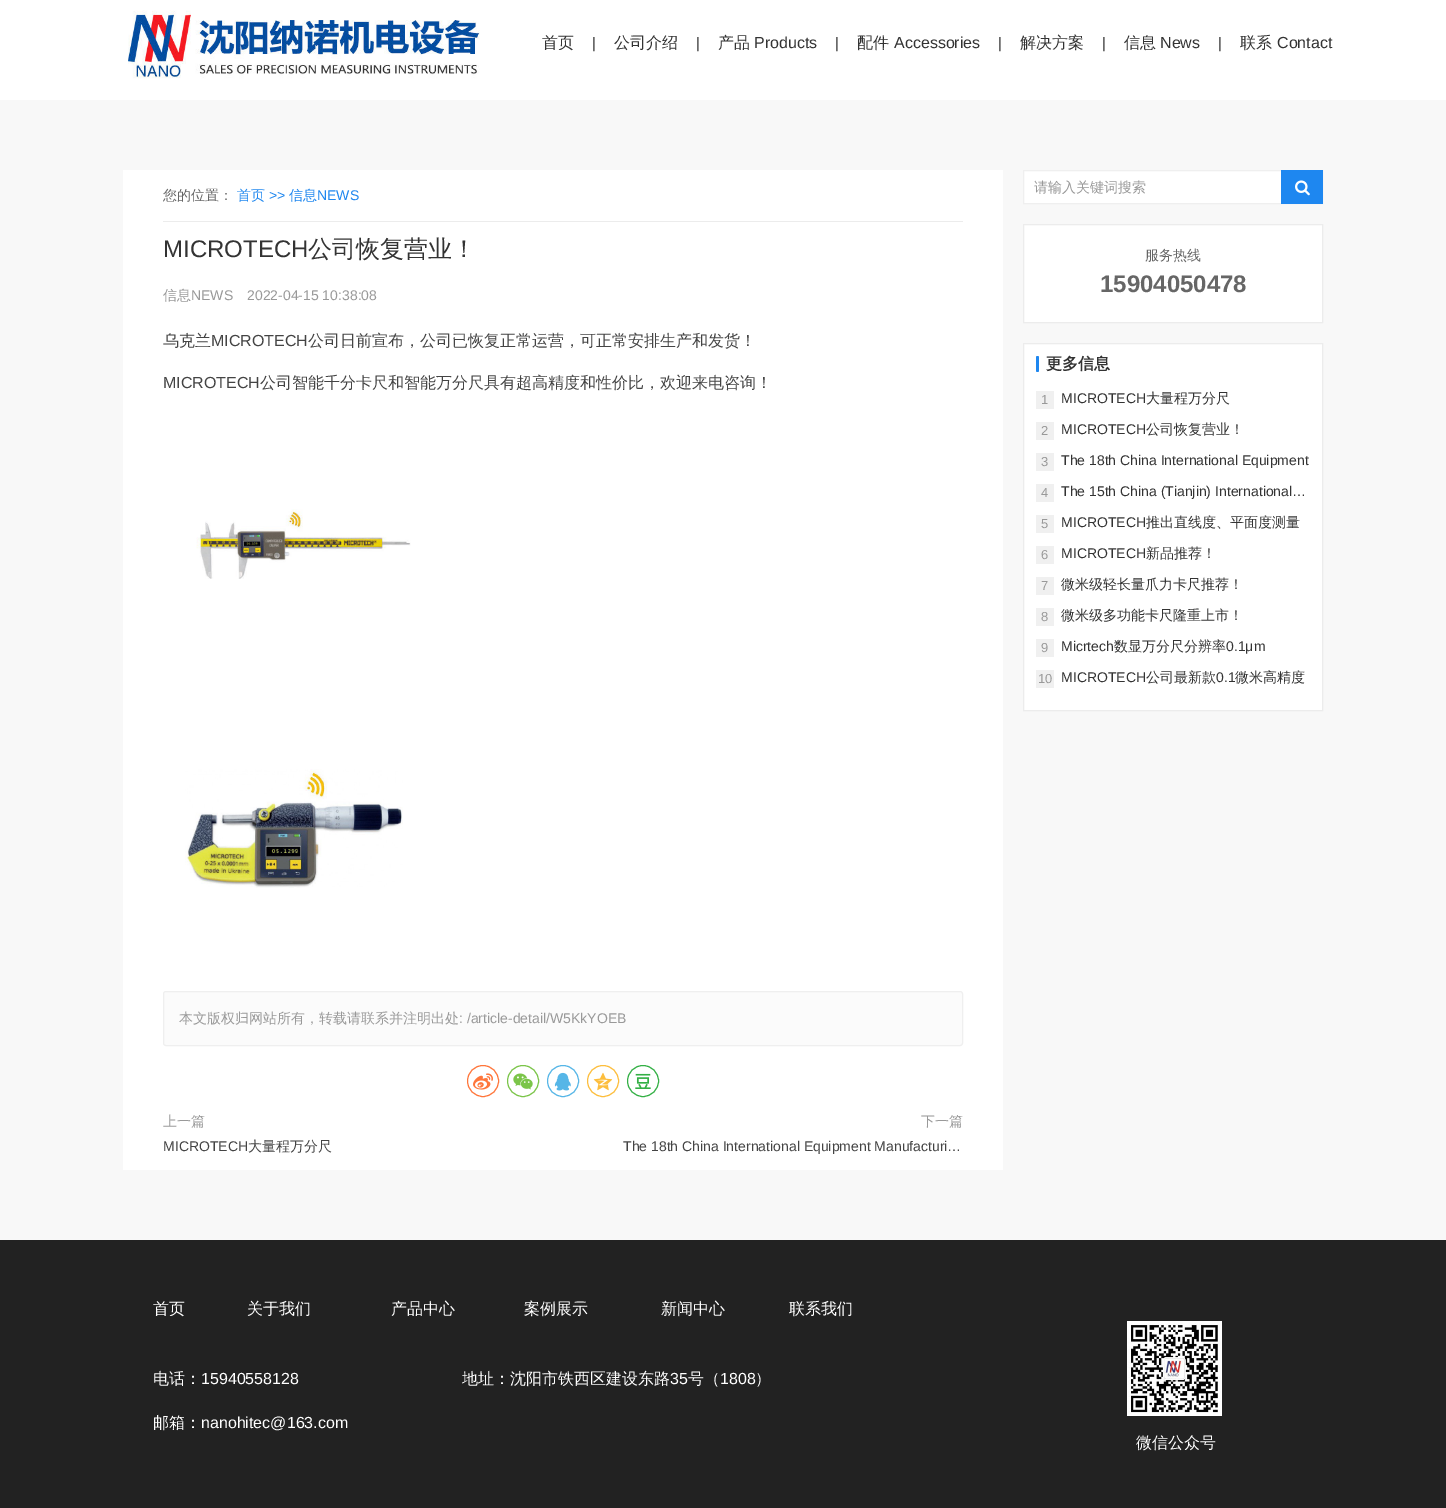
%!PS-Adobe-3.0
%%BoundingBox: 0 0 1446 1508
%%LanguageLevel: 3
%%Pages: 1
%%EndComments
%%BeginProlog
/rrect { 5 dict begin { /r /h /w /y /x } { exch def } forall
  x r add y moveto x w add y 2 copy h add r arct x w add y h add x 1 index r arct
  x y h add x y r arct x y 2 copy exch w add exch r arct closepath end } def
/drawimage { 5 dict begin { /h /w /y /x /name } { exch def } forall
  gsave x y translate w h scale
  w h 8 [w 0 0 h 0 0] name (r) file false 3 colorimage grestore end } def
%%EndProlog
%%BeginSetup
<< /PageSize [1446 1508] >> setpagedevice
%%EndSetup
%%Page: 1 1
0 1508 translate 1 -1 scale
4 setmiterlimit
1 setgray
0 0 1446 1508 rectfill
(images/1.raw) 128 10 352 69 drawimage
0.973 setgray
0 100 1446 1140 rectfill
1 setgray
123 170 880 1000 rectfill
0.925 setgray
163 221 800 1 rectfill
(images/2.raw) 196 509 215 70 drawimage
(images/3.raw) 185 769 218 119 drawimage
0.984 setgray
163.5 991.5 799 54 2.5 rrect gsave fill grestore
0.937 setgray
stroke
1 0.463 0.231 setrgbcolor
newpath 483 1081 15.5 0 360 arc closepath stroke
(images/4.raw) 473 1073 20 17 drawimage
0.482 0.773 0.286 setrgbcolor
newpath 523 1081 15.5 0 360 arc closepath stroke
(images/5.raw) 513 1073 20 17 drawimage
0.337 0.714 0.906 setrgbcolor
newpath 563 1081 15.5 0 360 arc closepath stroke
(images/6.raw) 554 1072 17 19 drawimage
0.992 0.745 0.239 setrgbcolor
newpath 603 1081 15.5 0 360 arc closepath stroke
(images/7.raw) 593 1072 20 19 drawimage
0.2 0.69 0.271 setrgbcolor
newpath 643 1081 15.5 0 360 arc closepath stroke
(images/8.raw) 635 1073 16 16 drawimage
1 setgray
1024 171 257 32 rectfill
0.937 setgray
1023.5 170.5 299 33 rectstroke
0.118 0.529 0.941 setrgbcolor
1281 170 42 34 rectfill
(images/9.raw) 1295 180 15 16 drawimage
1 setgray
newpath 1023.5 224.5 moveto 1322.5 224.5 lineto 1322.5 322.5 lineto 1023.5 322.5 lineto closepath gsave fill grestore
0.925 setgray
stroke
1 setgray
newpath 1023.5 343.5 moveto 1322.5 343.5 lineto 1322.5 710.5 lineto 1023.5 710.5 lineto closepath gsave fill grestore
0.925 setgray
stroke
0.118 0.529 0.941 setrgbcolor
1036 356 3 16 1.5 rrect fill
0.941 setgray
1036 391 18 18 rectfill
1036 422 18 18 rectfill
1036 453 18 18 rectfill
1036 484 18 18 rectfill
1036 515 18 18 rectfill
1036 546 18 18 rectfill
1036 577 18 18 rectfill
1036 608 18 18 rectfill
1036 639 18 18 rectfill
1036 670 18 18 rectfill
0.133 setgray
0 1240 1446 268 rectfill
(images/10.raw) 1127 1321 95 95 drawimage
/WenQuanYiZenHei-Medium [16 0 0 -16 0 0] selectfont
0.2 setgray
542 48 moveto (首页) show
/LiberationSans-Regular [15 0 0 -15 0 0] selectfont
592 48 moveto (|) show
/WenQuanYiZenHei-Medium [16 0 0 -16 0 0] selectfont
614 48 moveto (公司介绍) show
/LiberationSans-Regular [15 0 0 -15 0 0] selectfont
696 48 moveto (|) show
/WenQuanYiZenHei-Medium [16 0 0 -16 0 0] selectfont
718 48 moveto (产品) show
/LiberationSans-Regular [16 0 0 -16 0 0] selectfont
754 48 moveto (Products) show
/LiberationSans-Regular [15 0 0 -15 0 0] selectfont
835 48 moveto (|) show
/WenQuanYiZenHei-Medium [16 0 0 -16 0 0] selectfont
857 48 moveto (配件) show
/LiberationSans-Regular [16 0 0 -16 0 0] selectfont
894 48 moveto (Accessories) show
/LiberationSans-Regular [15 0 0 -15 0 0] selectfont
998 48 moveto (|) show
/WenQuanYiZenHei-Medium [16 0 0 -16 0 0] selectfont
1020 48 moveto (解决方案) show
/LiberationSans-Regular [15 0 0 -15 0 0] selectfont
1102 48 moveto (|) show
/WenQuanYiZenHei-Medium [16 0 0 -16 0 0] selectfont
1124 48 moveto (信息) show
/LiberationSans-Regular [16 0 0 -16 0 0] selectfont
1160 48 moveto (News) show
/LiberationSans-Regular [15 0 0 -15 0 0] selectfont
1218 48 moveto (|) show
/WenQuanYiZenHei-Medium [16 0 0 -16 0 0] selectfont
1240 48 moveto (联系) show
/LiberationSans-Regular [16 0 0 -16 0 0] selectfont
1277 48 moveto (Contact) show
/WenQuanYiZenHei-Medium [14 0 0 -14 0 0] selectfont
0.4 setgray
163 200 moveto (您的位置：) show
0.118 0.529 0.941 setrgbcolor
237 200 moveto (首页) show
/LiberationSans-Regular [14 0 0 -14 0 0] selectfont
269 200 moveto (>>) show
/WenQuanYiZenHei-Medium [14 0 0 -14 0 0] selectfont
289 200 moveto (信息) show
/LiberationSans-Regular [14 0 0 -14 0 0] selectfont
317 200 moveto (NEWS) show
/LiberationSans-Regular [24 0 0 -24 0 0] selectfont
0.2 setgray
163 257 moveto (MICROTECH) show
/WenQuanYiZenHei-Medium [24 0 0 -24 0 0] selectfont
308 257 moveto (公司恢复营业！) show
/WenQuanYiZenHei-Medium [14 0 0 -14 0 0] selectfont
0.6 setgray
163 300 moveto (信息) show
/LiberationSans-Regular [14 0 0 -14 0 0] selectfont
191 300 moveto (NEWS) show
247 300 moveto (2022-04-15 10:38:08) show
/WenQuanYiZenHei-Medium [16 0 0 -16 0 0] selectfont
0.267 setgray
163 346 moveto (乌克兰) show
/LiberationSans-Regular [16 0 0 -16 0 0] selectfont
211 346 moveto (MICROTECH) show
/WenQuanYiZenHei-Medium [16 0 0 -16 0 0] selectfont
308 346 moveto (公司日前宣布，公司已恢复正常运营，可正常安排生产和发货！) show
/LiberationSans-Regular [16 0 0 -16 0 0] selectfont
163 388 moveto (MICROTECH) show
/WenQuanYiZenHei-Medium [16 0 0 -16 0 0] selectfont
260 388 moveto (公司智能千分卡尺和智能万分尺具有超高精度和性价比，欢迎来电咨询！) show
/WenQuanYiZenHei-Medium [14 0 0 -14 0 0] selectfont
0.6 setgray
179 1023 moveto (本文版权归网站所有，转载请联系并注明出处) show
/LiberationSans-Regular [14 0 0 -14 0 0] selectfont
459 1023 moveto (: /article-detail/W5KkYOEB) show
/WenQuanYiZenHei-Medium [14 0 0 -14 0 0] selectfont
163 1126 moveto (上一篇) show
/LiberationSans-Regular [14 0 0 -14 0 0] selectfont
0.267 setgray
163 1151 moveto (MICROTECH) show
/WenQuanYiZenHei-Medium [14 0 0 -14 0 0] selectfont
248 1151 moveto (大量程万分尺) show
0.6 setgray
921 1126 moveto (下一篇) show
/LiberationSans-Regular [14 0 0 -14 0 0] selectfont
0.267 setgray
623 1151 moveto (The 18th China International Equipment Manufacturi…) show
/WenQuanYiZenHei-Medium [14 0 0 -14 0 0] selectfont
0.6 setgray
1034 192 moveto (请输入关键词搜索) show
0.4 setgray
1145 260 moveto (服务热线) show
/LiberationSans-Bold [24 0 0 -24 0 0] selectfont
1100 292 moveto (15904050478) show
/WenQuanYiZenHei-Bold [16 0 0 -16 0 0] selectfont
0.2 setgray
1046 369 moveto (更多信息) show
/LiberationSans-Regular [13 0 0 -13 0 0] selectfont
0.6 setgray
1041 404 moveto (1) show
/LiberationSans-Regular [14 0 0 -14 0 0] selectfont
0.2 setgray
1061 403 moveto (MICROTECH) show
/WenQuanYiZenHei-Medium [14 0 0 -14 0 0] selectfont
1146 403 moveto (大量程万分尺) show
/LiberationSans-Regular [13 0 0 -13 0 0] selectfont
0.6 setgray
1041 435 moveto (2) show
/LiberationSans-Regular [14 0 0 -14 0 0] selectfont
0.2 setgray
1061 434 moveto (MICROTECH) show
/WenQuanYiZenHei-Medium [14 0 0 -14 0 0] selectfont
1146 434 moveto (公司恢复营业！) show
/LiberationSans-Regular [13 0 0 -13 0 0] selectfont
0.6 setgray
1041 466 moveto (3) show
/LiberationSans-Regular [14 0 0 -14 0 0] selectfont
0.2 setgray
1061 465 moveto (The 18th China International Equipment) show
/LiberationSans-Regular [13 0 0 -13 0 0] selectfont
0.6 setgray
1041 497 moveto (4) show
/LiberationSans-Regular [14 0 0 -14 0 0] selectfont
0.2 setgray
1061 496 moveto (The 15th China \(Tianjin\) International…) show
/LiberationSans-Regular [13 0 0 -13 0 0] selectfont
0.6 setgray
1041 528 moveto (5) show
/LiberationSans-Regular [14 0 0 -14 0 0] selectfont
0.2 setgray
1061 527 moveto (MICROTECH) show
/WenQuanYiZenHei-Medium [14 0 0 -14 0 0] selectfont
1146 527 moveto (推出直线度、平面度测量) show
/LiberationSans-Regular [13 0 0 -13 0 0] selectfont
0.6 setgray
1041 559 moveto (6) show
/LiberationSans-Regular [14 0 0 -14 0 0] selectfont
0.2 setgray
1061 558 moveto (MICROTECH) show
/WenQuanYiZenHei-Medium [14 0 0 -14 0 0] selectfont
1146 558 moveto (新品推荐！) show
/LiberationSans-Regular [13 0 0 -13 0 0] selectfont
0.6 setgray
1041 590 moveto (7) show
/WenQuanYiZenHei-Medium [14 0 0 -14 0 0] selectfont
0.2 setgray
1061 589 moveto (微米级轻长量爪力卡尺推荐！) show
/LiberationSans-Regular [13 0 0 -13 0 0] selectfont
0.6 setgray
1041 621 moveto (8) show
/WenQuanYiZenHei-Medium [14 0 0 -14 0 0] selectfont
0.2 setgray
1061 620 moveto (微米级多功能卡尺隆重上市！) show
/LiberationSans-Regular [13 0 0 -13 0 0] selectfont
0.6 setgray
1041 652 moveto (9) show
/LiberationSans-Regular [14 0 0 -14 0 0] selectfont
0.2 setgray
1061 651 moveto (Micrtech) show
/WenQuanYiZenHei-Medium [14 0 0 -14 0 0] selectfont
1114 651 moveto (数显万分尺分辨率) show
/LiberationSans-Regular [14 0 0 -14 0 0] selectfont
1226 651 moveto (0.1μm) show
/LiberationSans-Regular [13 0 0 -13 0 0] selectfont
0.6 setgray
1038 683 moveto (10) show
/LiberationSans-Regular [14 0 0 -14 0 0] selectfont
0.2 setgray
1061 682 moveto (MICROTECH) show
/WenQuanYiZenHei-Medium [14 0 0 -14 0 0] selectfont
1146 682 moveto (公司最新款) show
/LiberationSans-Regular [14 0 0 -14 0 0] selectfont
1216 682 moveto (0.1) show
/WenQuanYiZenHei-Medium [14 0 0 -14 0 0] selectfont
1235 682 moveto (微米高精度) show
/WenQuanYiZenHei-Medium [16 0 0 -16 0 0] selectfont
1 setgray
153 1314 moveto (首页) show
247 1314 moveto (关于我们) show
391 1314 moveto (产品中心) show
524 1314 moveto (案例展示) show
661 1314 moveto (新闻中心) show
789 1314 moveto (联系我们) show
153 1384 moveto (电话：) show
/LiberationSans-Regular [16 0 0 -16 0 0] selectfont
201 1384 moveto (15940558128) show
/WenQuanYiZenHei-Medium [16 0 0 -16 0 0] selectfont
462 1384 moveto (地址：沈阳市铁西区建设东路) show
/LiberationSans-Regular [16 0 0 -16 0 0] selectfont
670 1384 moveto (35) show
/WenQuanYiZenHei-Medium [16 0 0 -16 0 0] selectfont
688 1384 moveto (号（) show
/LiberationSans-Regular [16 0 0 -16 0 0] selectfont
720 1384 moveto (1808) show
/WenQuanYiZenHei-Medium [16 0 0 -16 0 0] selectfont
755 1384 moveto (）) show
153 1428 moveto (邮箱：) show
/LiberationSans-Regular [16 0 0 -16 0 0] selectfont
201 1428 moveto (nanohitec@163.com) show
/WenQuanYiZenHei-Medium [16 0 0 -16 0 0] selectfont
1136 1448 moveto (微信公众号) show
showpage
%%EOF
